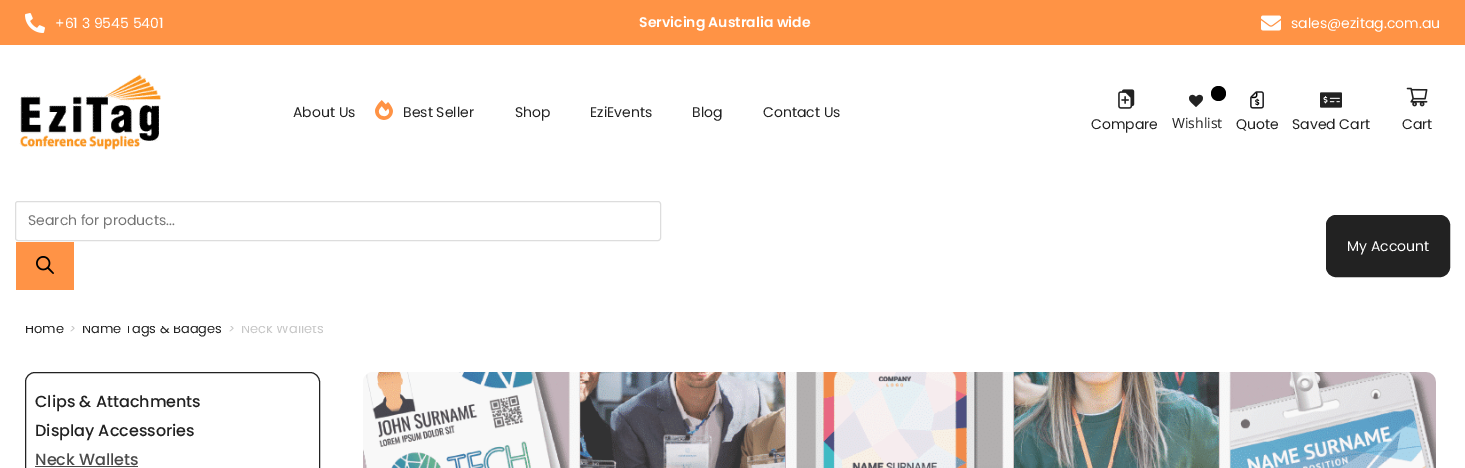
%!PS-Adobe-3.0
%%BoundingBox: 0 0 1465 468
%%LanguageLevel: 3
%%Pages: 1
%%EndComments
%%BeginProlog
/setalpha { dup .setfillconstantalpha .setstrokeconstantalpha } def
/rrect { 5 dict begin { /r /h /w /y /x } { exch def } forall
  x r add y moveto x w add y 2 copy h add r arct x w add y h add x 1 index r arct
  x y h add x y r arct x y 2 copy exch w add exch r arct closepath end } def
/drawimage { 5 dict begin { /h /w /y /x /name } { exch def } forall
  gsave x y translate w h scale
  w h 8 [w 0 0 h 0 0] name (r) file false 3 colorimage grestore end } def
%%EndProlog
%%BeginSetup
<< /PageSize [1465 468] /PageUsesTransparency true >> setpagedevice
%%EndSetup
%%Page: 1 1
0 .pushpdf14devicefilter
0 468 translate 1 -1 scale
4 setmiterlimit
1 setgray
0 0 1465 468 rectfill
1 0.576 0.271 setrgbcolor
0 0 1465 45 rectfill
(images/1.raw) 25 13 20 20 drawimage
(images/2.raw) 1261 15 20 16 drawimage
(images/3.raw) 19 74 142 76 drawimage
(images/4.raw) 375 100 18 20 drawimage
(images/5.raw) 1118 89 17 20 drawimage
(images/6.raw) 1189 94 14 13 drawimage
0 setgray
newpath 1218.5 93.5 7.5 0 360 arc closepath fill
(images/7.raw) 1250 91 14 18 drawimage
(images/8.raw) 1320 92 22 16 drawimage
(images/9.raw) 1406 87 22 20 drawimage
0.867 setgray
15.5 201.5 645 39 2.5 rrect stroke
1 0.576 0.275 setrgbcolor
16 242 58 48 rectfill
(images/10.raw) 36 256 18 18 drawimage
0.133 setgray
1326.5 215.5 123 61 9.5 rrect gsave fill grestore
stroke
25.5 372.5 294 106 9.5 rrect stroke
0.29 setgray
35 466 103 1 rectfill
(images/11.raw) 363 372 1073 96 drawimage
0.2 setalpha
0.855 setgray
363 372 1073 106 10 rrect fill
/Poppins-Regular [14 0 0 -14 0 0] selectfont
1 setalpha
1 setgray
55 28 moveto (+61 3 9545 5401) show
/Poppins-SemiBold [14 0 0 -14 0 0] selectfont
639 27 moveto (Servicing Australia wide) show
/Poppins-Regular [14 0 0 -14 0 0] selectfont
1291 28 moveto (sales@ezitag.com.au) show
0.133 setgray
293 117 moveto (About Us) show
403 117 moveto (Best Seller) show
515 117 moveto (Shop) show
590 117 moveto (EziEvents) show
692 117 moveto (Blog) show
763 117 moveto (Contact Us) show
1091 129 moveto (Compare) show
/OpenSans-Regular [14 0 0 -14 0 0] selectfont
1172 128 moveto (Wishlist) show
/Poppins-Regular [14 0 0 -14 0 0] selectfont
1236 129 moveto (Quote) show
1292 129 moveto (Saved Cart) show
1402 129 moveto (Cart) show
0.459 setgray
28 225 moveto (Search for products...) show
1 setgray
1347 251 moveto (My Account) show
/Poppins-Regular [13 0 0 -13 0 0] selectfont
0.133 setgray
25 333 moveto (Home) show
0.776 setgray
69 333 moveto (>) show
0.133 setgray
82 333 moveto (Name Tags & Badges) show
0.776 setgray
228 333 moveto (>) show
241 333 moveto (Neck Wallets) show
1 setgray
25 323 297 3 rectfill
/Poppins-Medium [16 0 0 -16 0 0] selectfont
0.133 setgray
35 407 moveto (Clips & Attachments) show
35 436 moveto (Display Accessories) show
0.29 setgray
35 465 moveto (Neck Wallets) show
.poppdf14devicefilter showpage
%%EOF
